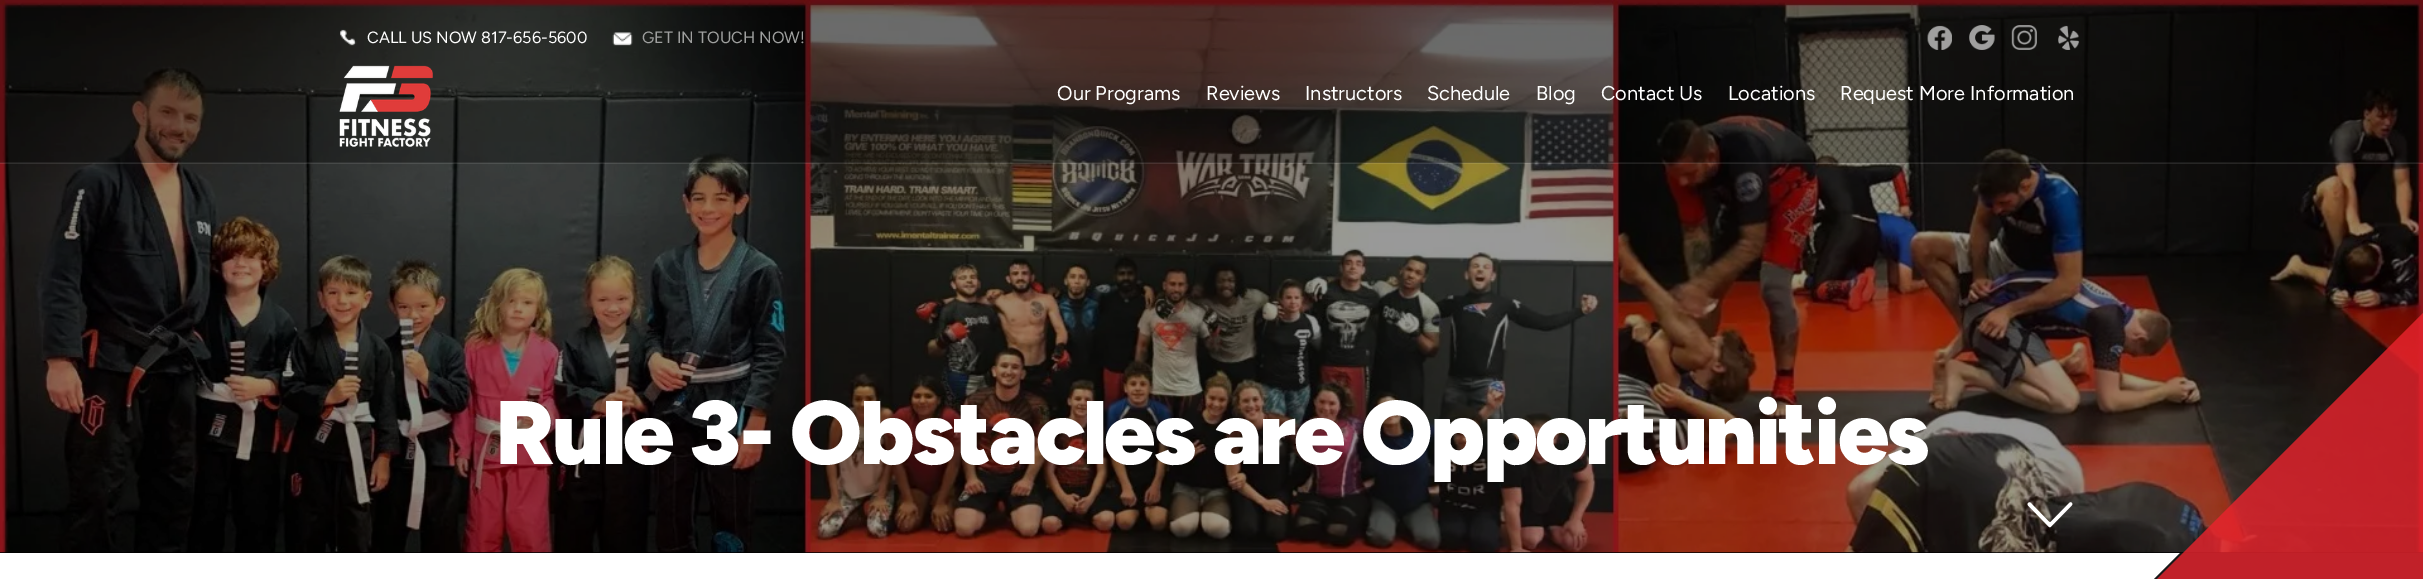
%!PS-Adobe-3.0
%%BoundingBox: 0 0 2423 579
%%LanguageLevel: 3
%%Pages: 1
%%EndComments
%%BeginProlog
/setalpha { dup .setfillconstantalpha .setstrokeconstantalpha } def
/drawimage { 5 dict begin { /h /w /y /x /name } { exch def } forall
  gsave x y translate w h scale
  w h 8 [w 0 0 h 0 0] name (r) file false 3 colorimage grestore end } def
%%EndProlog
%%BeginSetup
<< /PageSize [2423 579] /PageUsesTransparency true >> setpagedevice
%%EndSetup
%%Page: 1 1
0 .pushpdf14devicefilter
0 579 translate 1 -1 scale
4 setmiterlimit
1 setgray
0 0 2423 579 rectfill
0 setgray
0 0 2423 553 rectfill
0.9 setalpha
newpath 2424 309 moveto 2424 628 lineto 2105 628 lineto closepath fill
1 setalpha
(images/8.raw) 0 0 2423 553 drawimage
0.1 setalpha
1 setgray
newpath 0 162 moveto 0 164 lineto 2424 164 lineto 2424 1 lineto 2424 162 lineto closepath fill
0.3 setalpha
0 setgray
0 0 2423 163 rectfill
1 setalpha
(images/1.raw) 340 29 17 17 drawimage
(images/2.raw) 612 32 21 14 drawimage
(images/3.raw) 1927 25 25 25 drawimage
(images/4.raw) 1969 25 26 25 drawimage
(images/5.raw) 2011 25 26 25 drawimage
(images/6.raw) 2058 25 22 25 drawimage
(images/7.raw) 339 65 94 82 drawimage
(images/9.raw) 2027 502 46 26 drawimage
0.8 setalpha
0.922 0.137 0.176 setrgbcolor
newpath 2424 312 moveto 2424 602 lineto 2134 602 lineto closepath fill
/Figtree-Regular [16.25 0 0 -16.25 0 0] selectfont
1 setalpha
1 setgray
367 43 moveto (CALL US NOW 817-656-5600) show
0.624 0.627 0.624 setrgbcolor
642 43 moveto (GET IN TOUCH NOW!) show
/Figtree-Regular [20 0 0 -20 0 0] selectfont
1 setgray
1057 100 moveto (Our Programs) show
1206 100 moveto (Reviews) show
1305 100 moveto (Instructors) show
1427 100 moveto (Schedule) show
1536 100 moveto (Blog) show
1601 100 moveto (Contact Us) show
1728 100 moveto (Locations) show
1840 100 moveto (Request More Information) show
/Figtree-Black [90 0 0 -90 0 0] selectfont
495 464 moveto -2.5 0 (Rule 3- Obstacles are Opportunities) ashow
.poppdf14devicefilter showpage
%%EOF
